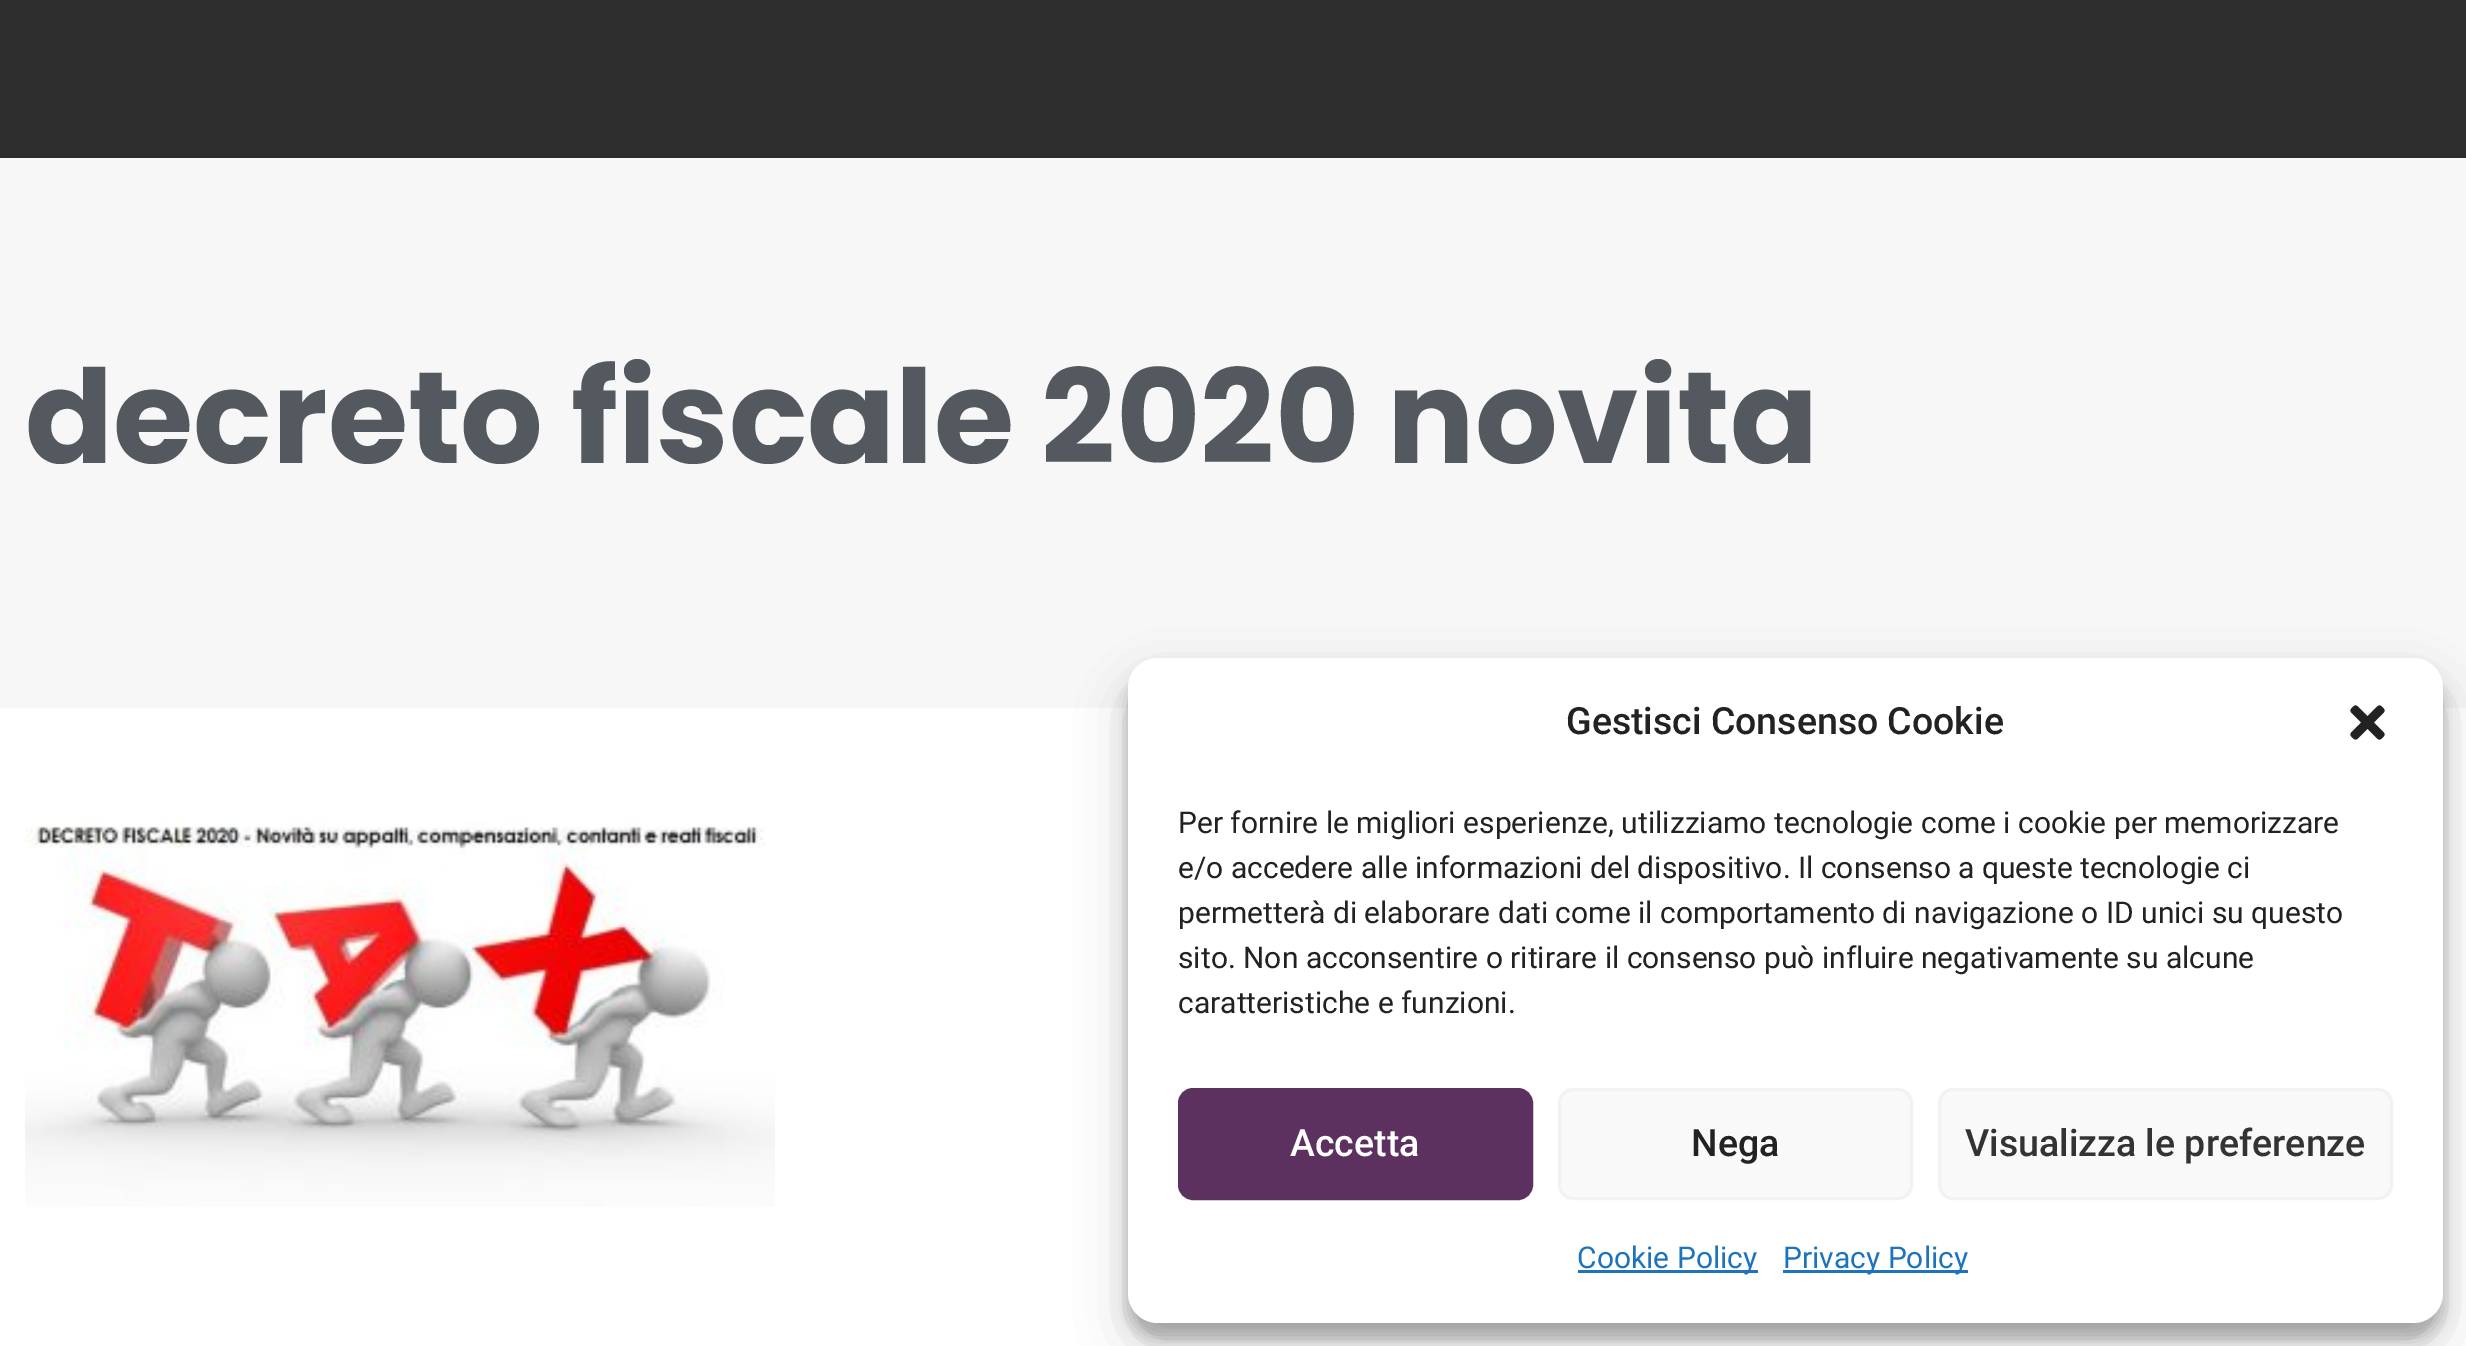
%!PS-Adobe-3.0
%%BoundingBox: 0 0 2466 1346
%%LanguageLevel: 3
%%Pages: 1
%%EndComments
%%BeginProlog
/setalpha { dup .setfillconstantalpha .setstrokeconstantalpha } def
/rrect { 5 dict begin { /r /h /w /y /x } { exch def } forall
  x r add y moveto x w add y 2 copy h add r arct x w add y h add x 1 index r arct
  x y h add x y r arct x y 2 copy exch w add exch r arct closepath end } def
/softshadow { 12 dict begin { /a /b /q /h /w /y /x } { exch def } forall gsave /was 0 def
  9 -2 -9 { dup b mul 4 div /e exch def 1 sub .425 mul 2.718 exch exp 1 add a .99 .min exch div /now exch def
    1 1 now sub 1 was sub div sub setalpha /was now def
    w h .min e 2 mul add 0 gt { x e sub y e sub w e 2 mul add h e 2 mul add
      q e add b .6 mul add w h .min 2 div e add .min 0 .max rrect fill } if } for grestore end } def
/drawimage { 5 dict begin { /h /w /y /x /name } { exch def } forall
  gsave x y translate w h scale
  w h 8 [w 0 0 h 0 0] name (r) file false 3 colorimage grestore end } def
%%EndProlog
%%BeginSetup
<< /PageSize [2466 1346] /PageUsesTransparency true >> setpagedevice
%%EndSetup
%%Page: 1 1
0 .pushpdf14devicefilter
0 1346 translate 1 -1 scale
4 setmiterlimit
1 setgray
0 0 2466 1346 rectfill
0.176 setgray
0 0 2466 158 rectfill
0.969 setgray
0 158 2466 550 rectfill
(images/1.raw) 25 819 750 388 drawimage
0 setgray
1128 673 1315 665 30 7.5 0.23 softshadow
1128 683 1315 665 30 25 0.19 softshadow
1 setgray
1128 658 1315 665 30 rrect fill
(images/2.raw) 2350 705 35 35 drawimage
0.361 0.188 0.373 setrgbcolor
1179.5 1089.5 352 109 13.5 rrect gsave fill grestore
3 setlinewidth
stroke
0.976 setgray
1559.5 1089.5 352 109 13.5 rrect gsave fill grestore
0.949 setgray
stroke
0.976 setgray
1939.5 1089.5 452 109 13.5 rrect gsave fill grestore
0.949 setgray
stroke
0.118 0.451 0.745 setrgbcolor
1578 1270 180 3 rectfill
1783 1270 185 3 rectfill
/Poppins-Bold [130 0 0 -130 0 0] selectfont
0.329 0.349 0.373 setrgbcolor
25 463 moveto (decreto fiscale 2020 novita) show
/Roboto-Medium [37.5 0 0 -37.5 0 0] selectfont
0.133 setgray
1566 734 moveto (Gestisci Consenso Cookie) show
/Roboto-Regular [30 0 0 -30 0 0] selectfont
1178 833 moveto (Per fornire le migliori esperienze, utilizziamo tecnologie come i cookie per memorizzare) show
1178 878 moveto (e/o accedere alle informazioni del dispositivo. Il consenso a queste tecnologie ci) show
1178 923 moveto (permetterà di elaborare dati come il comportamento di navigazione o ID unici su questo) show
1178 968 moveto (sito. Non acconsentire o ritirare il consenso può influire negativamente su alcune) show
1178 1013 moveto (caratteristiche e funzioni.) show
/Roboto-Medium [37.5 0 0 -37.5 0 0] selectfont
1 setgray
1290 1156 moveto (Accetta) show
0.133 setgray
1691 1156 moveto (Nega) show
0.2 setgray
1965 1156 moveto (Visualizza le preferenze) show
/Roboto-Regular [30 0 0 -30 0 0] selectfont
0.118 0.451 0.745 setrgbcolor
1577 1268 moveto (Cookie Policy) show
1783 1268 moveto (Privacy Policy) show
.poppdf14devicefilter showpage
%%EOF
